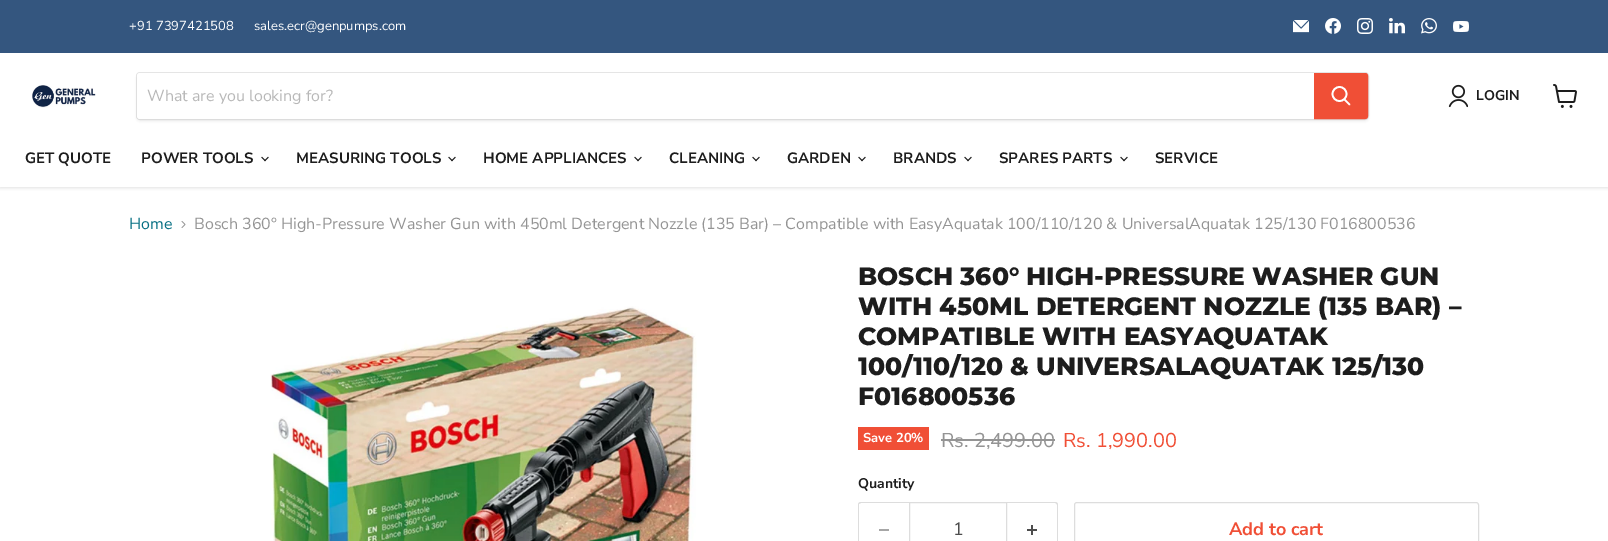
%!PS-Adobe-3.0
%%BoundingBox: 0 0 1608 541
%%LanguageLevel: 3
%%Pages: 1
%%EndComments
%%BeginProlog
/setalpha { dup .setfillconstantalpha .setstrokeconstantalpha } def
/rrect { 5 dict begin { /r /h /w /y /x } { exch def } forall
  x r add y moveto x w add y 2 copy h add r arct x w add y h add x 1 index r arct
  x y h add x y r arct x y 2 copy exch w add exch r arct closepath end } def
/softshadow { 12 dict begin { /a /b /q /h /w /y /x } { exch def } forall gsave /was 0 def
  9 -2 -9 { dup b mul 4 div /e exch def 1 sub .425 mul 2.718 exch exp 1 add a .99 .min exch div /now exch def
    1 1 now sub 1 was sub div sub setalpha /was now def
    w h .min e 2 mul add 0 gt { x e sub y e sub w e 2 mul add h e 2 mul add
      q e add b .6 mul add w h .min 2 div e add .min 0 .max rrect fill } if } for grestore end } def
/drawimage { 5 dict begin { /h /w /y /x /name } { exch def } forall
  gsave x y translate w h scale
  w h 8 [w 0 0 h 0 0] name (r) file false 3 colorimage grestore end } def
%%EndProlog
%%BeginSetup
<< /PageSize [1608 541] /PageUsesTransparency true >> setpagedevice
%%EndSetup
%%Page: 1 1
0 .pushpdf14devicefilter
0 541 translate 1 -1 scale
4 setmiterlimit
1 setgray
0 0 1608 541 rectfill
gsave
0 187 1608 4 rectclip
0.502 setgray
0 54 1608 134 0 2 0.25 softshadow
grestore
0.204 0.337 0.498 setrgbcolor
0 0 1608 53 rectfill
(images/1.raw) 1293 20 16 13 drawimage
(images/2.raw) 1325 18 16 16 drawimage
(images/3.raw) 1357 18 16 16 drawimage
(images/4.raw) 1389 18 16 16 drawimage
(images/5.raw) 1421 18 16 16 drawimage
(images/6.raw) 1453 21 16 11 drawimage
(images/7.raw) 32 85 64 23 drawimage
0.502 setgray
136 74 1233 48 4 1.5 0.11 softshadow
0.2 setalpha
136.5 72.5 1232 47 3.5 rrect stroke
1 setalpha
1 setgray
newpath 140 73 moveto 1314 73 lineto 1314 119 lineto 140 119 lineto 138.5 119 137 117.5 137 116 curveto 137 76 lineto 137 74.5 138.5 73 140 73 curveto closepath fill
0.941 0.31 0.212 setrgbcolor
newpath 1314.5 73.5 moveto 1365 73.5 lineto 1366.5 73.5 1367.5 74.5 1367.5 76 curveto 1367.5 116 lineto 1367.5 117.5 1366.5 118.5 1365 118.5 curveto 1314.5 118.5 lineto closepath gsave fill grestore
stroke
1 setgray
1.7 setlinewidth
1 setlinecap
newpath 1349.5 104.5 moveto 1344.5 99.5 lineto stroke
0 setlinecap
newpath 1339.5 94 7 0 360 arc closepath stroke
(images/8.raw) 1448 84 20 24 drawimage
(images/9.raw) 1553 84 24 24 drawimage
(images/10.raw) 261 156 8 6 drawimage
(images/10.raw) 448 156 8 6 drawimage
(images/10.raw) 634 156 8 6 drawimage
(images/10.raw) 752 156 8 6 drawimage
(images/10.raw) 858 156 8 6 drawimage
(images/10.raw) 964 156 8 6 drawimage
(images/10.raw) 1120 156 8 6 drawimage
(images/11.raw) 181 221 5 7 drawimage
(images/12.raw) 270 306 427 235 drawimage
0.941 0.31 0.212 setrgbcolor
858 427 71 23 rectfill
0.58 setgray
941 439 114 2 rectfill
0.867 setgray
newpath 861 502 moveto 909 502 lineto 909 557 lineto 861 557 lineto 859 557 858 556 858 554 curveto 858 505 lineto 858 503 859 502 861 502 curveto closepath 861 503 moveto 909 503 lineto 909 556 lineto 869 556 lineto 865 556 859 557 859 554 curveto 859 504 lineto closepath eofill
0.651 setgray
879 529 10 2 rectfill
0.867 setgray
1 setlinewidth
909.5 502.5 97 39 rectstroke
newpath 1007 502 moveto 1055 502 lineto 1057 502 1058 503 1058 505 curveto 1058 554 lineto 1058 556 1057 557 1055 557 curveto 1007 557 lineto closepath 1007 503 moveto 1055 503 lineto 1056 503 1057 504 1057 505 curveto 1057 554 lineto 1057 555 1056 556 1055 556 curveto 1007 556 lineto closepath eofill
(images/13.raw) 1027 525 10 10 drawimage
1074.5 502.5 404 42 2.5 rrect stroke
/NunitoSans-Regular [13 0 0 -13 0 0] selectfont
1 setgray
129 30 moveto (+91 7397421508) show
254 30 moveto (sales.ecr@genpumps.com) show
/NunitoSans-Regular [16 0 0 -16 0 0] selectfont
0.722 setgray
147 101 moveto (What are you looking for?) show
/NunitoSans-Bold [14 0 0 -14 0 0] selectfont
0.114 setgray
1476 100 moveto (LOGIN) show
/NunitoSans-Bold [15 0 0 -15 0 0] selectfont
25 163 moveto (GET QUOTE) show
141 163 moveto (POWER TOOLS) show
296 163 moveto (MEASURING TOOLS) show
483 163 moveto (HOME APPLIANCES) show
669 163 moveto (CLEANING) show
787 163 moveto (GARDEN) show
893 163 moveto (BRANDS) show
999 163 moveto (SPARES PARTS) show
1155 163 moveto (SERVICE) show
/NunitoSans-Regular [16 0 0 -16 0 0] selectfont
0.016 0.431 0.51 setrgbcolor
129 229 moveto (Home) show
0.58 setgray
194 229 moveto (Bosch 360° High-Pressure Washer Gun with 450ml Detergent Nozzle \(135 Bar\) – Compatible with EasyAquatak 100/110/120 & UniversalAquatak 125/130 F016800536) show
/Montserrat-ExtraBold [25 0 0 -25 0 0] selectfont
0.114 setgray
858 285 moveto (BOSCH 360° HIGH-PRESSURE WASHER GUN) show
858 315 moveto (WITH 450ML DETERGENT NOZZLE \(135 BAR\) –) show
858 345 moveto (COMPATIBLE WITH EASYAQUATAK) show
858 375 moveto (100/110/120 & UNIVERSALAQUATAK 125/130) show
858 405 moveto (F016800536) show
/NunitoSans-Bold [13 0 0 -13 0 0] selectfont
1 setgray
863 442 moveto (Save 20%) show
/NunitoSans-Regular [20 0 0 -20 0 0] selectfont
0.58 setgray
941 447 moveto (Rs. 2,499.00) show
0.941 0.31 0.212 setrgbcolor
1063 447 moveto (Rs. 1,990.00) show
/NunitoSans-Bold [14 0 0 -14 0 0] selectfont
0.114 setgray
858 488 moveto (Quantity) show
/NunitoSans-Regular [18 0 0 -18 0 0] selectfont
0.302 setgray
953 535 moveto (1) show
/NunitoSans-Bold [18 0 0 -18 0 0] selectfont
0.941 0.31 0.212 setrgbcolor
1229 535 moveto (Add to cart) show
.poppdf14devicefilter showpage
%%EOF
